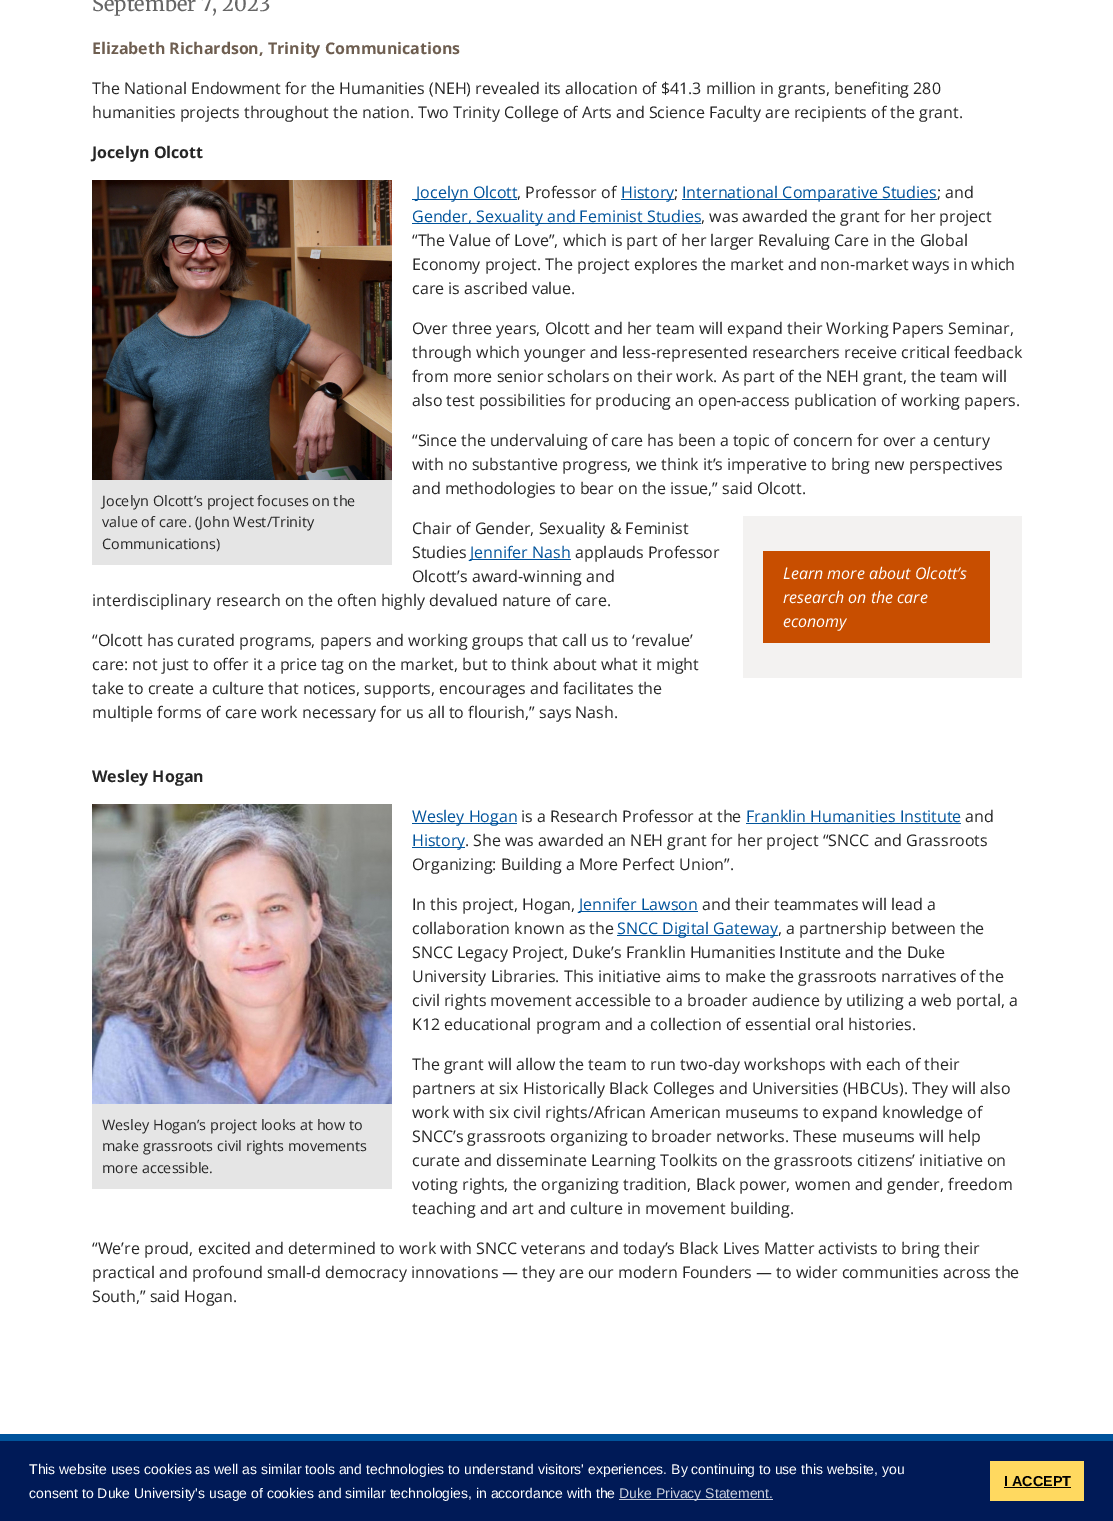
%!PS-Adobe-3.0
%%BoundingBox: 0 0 1113 1521
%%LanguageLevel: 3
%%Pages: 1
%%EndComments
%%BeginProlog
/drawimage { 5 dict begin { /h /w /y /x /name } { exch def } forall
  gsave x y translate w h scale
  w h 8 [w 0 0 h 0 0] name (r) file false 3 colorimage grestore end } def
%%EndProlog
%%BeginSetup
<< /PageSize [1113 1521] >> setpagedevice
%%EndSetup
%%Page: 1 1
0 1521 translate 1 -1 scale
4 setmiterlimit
1 setgray
0 0 1113 1521 rectfill
0 0.325 0.608 setrgbcolor
412 199 105 1 rectfill
621 199 53 1 rectfill
682 199 255 1 rectfill
412 223 289 1 rectfill
(images/1.raw) 92 180 300 300 drawimage
0.898 setgray
92 480 300 85 rectfill
0 0.325 0.608 setrgbcolor
470 559 101 1 rectfill
0.953 0.949 0.945 setrgbcolor
743 516 279 162 rectfill
0.784 0.306 0 setrgbcolor
763 551 227 92 rectfill
0 0.325 0.608 setrgbcolor
412 823 105 1 rectfill
746 823 215 1 rectfill
412 847 53 1 rectfill
579 911 119 1 rectfill
617 935 161 1 rectfill
(images/2.raw) 92 804 300 300 drawimage
0.898 setgray
92 1104 300 85 rectfill
0 0.325 0.608 setrgbcolor
0 1434 1113 7 rectfill
0 0.102 0.341 setrgbcolor
0 1441 1113 80 rectfill
0.8 0.82 0.867 setrgbcolor
619 1499 154 1 rectfill
1 0.851 0.376 setrgbcolor
990 1461 94 40 rectfill
0 setgray
1004 1487 67 1 rectfill
/Merriweather-Regular [20 0 0 -20 0 0] selectfont
0.4 setgray
92 11 moveto (September 7, 2023) show
/OpenSans-Bold [16 0 0 -16 0 0] selectfont
0.431 0.369 0.314 setrgbcolor
92 54 moveto (Elizabeth Richardson, Trinity Communications) show
/OpenSans-Regular [16 0 0 -16 0 0] selectfont
0.149 setgray
92 94 moveto (The National Endowment for the Humanities \(NEH\) revealed its allocation of $41.3 million in grants, benefiting 280) show
92 118 moveto (humanities projects throughout the nation. Two Trinity College of Arts and Science Faculty are recipients of the grant.) show
/OpenSans-Bold [16 0 0 -16 0 0] selectfont
92 158 moveto (Jocelyn Olcott) show
/OpenSans-Regular [16 0 0 -16 0 0] selectfont
0 0.325 0.608 setrgbcolor
416 198 moveto (Jocelyn Olcott) show
0.149 setgray
517 198 moveto (, Professor of) show
0 0.325 0.608 setrgbcolor
621 198 moveto (History) show
0.149 setgray
674 198 moveto (;) show
0 0.325 0.608 setrgbcolor
682 198 moveto (International Comparative Studies) show
0.149 setgray
937 198 moveto (; and) show
0 0.325 0.608 setrgbcolor
412 222 moveto (Gender, Sexuality and Feminist Studies) show
0.149 setgray
701 222 moveto (, was awarded the grant for her project) show
412 246 moveto (“The Value of Love”, which is part of her larger Revaluing Care in the Global) show
412 270 moveto (Economy project. The project explores the market and non-market ways in which) show
412 294 moveto (care is ascribed value.) show
412 334 moveto (Over three years, Olcott and her team will expand their Working Papers Seminar,) show
412 358 moveto (through which younger and less-represented researchers receive critical feedback) show
412 382 moveto (from more senior scholars on their work. As part of the NEH grant, the team will) show
412 406 moveto (also test possibilities for producing an open-access publication of working papers.) show
412 446 moveto (“Since the undervaluing of care has been a topic of concern for over a century) show
412 470 moveto (with no substantive progress, we think it’s imperative to bring new perspectives) show
412 494 moveto (and methodologies to bear on the issue,” said Olcott.) show
/OpenSans-Regular [14.4 0 0 -14.4 0 0] selectfont
102 506 moveto (Jocelyn Olcott’s project focuses on the) show
102 527 moveto (value of care. \(John West/Trinity) show
102 549 moveto (Communications\)) show
/OpenSans-Regular [16 0 0 -16 0 0] selectfont
412 534 moveto (Chair of Gender, Sexuality & Feminist) show
412 558 moveto (Studies) show
0 0.325 0.608 setrgbcolor
470 558 moveto (Jennifer Nash) show
0.149 setgray
575 558 moveto (applauds Professor) show
412 582 moveto (Olcott’s award-winning and) show
92 606 moveto (interdisciplinary research on the often highly devalued nature of care.) show
/OpenSans-Italic [16 0 0 -16 0 0] selectfont
1 setgray
783 579 moveto (Learn more about Olcott’s) show
783 603 moveto (research on the care) show
783 627 moveto (economy) show
/OpenSans-Regular [16 0 0 -16 0 0] selectfont
0.149 setgray
92 646 moveto (“Olcott has curated programs, papers and working groups that call us to ‘revalue’) show
92 670 moveto (care: not just to offer it a price tag on the market, but to think about what it might) show
92 694 moveto (take to create a culture that notices, supports, encourages and facilitates the) show
92 718 moveto (multiple forms of care work necessary for us all to flourish,” says Nash.) show
/OpenSans-Bold [16 0 0 -16 0 0] selectfont
92 782 moveto (Wesley Hogan) show
/OpenSans-Regular [16 0 0 -16 0 0] selectfont
0 0.325 0.608 setrgbcolor
412 822 moveto (Wesley Hogan) show
0.149 setgray
521 822 moveto (is a Research Professor at the) show
0 0.325 0.608 setrgbcolor
746 822 moveto (Franklin Humanities Institute) show
0.149 setgray
965 822 moveto (and) show
0 0.325 0.608 setrgbcolor
412 846 moveto (History) show
0.149 setgray
465 846 moveto (. She was awarded an NEH grant for her project “SNCC and Grassroots) show
412 870 moveto (Organizing: Building a More Perfect Union”.) show
412 910 moveto (In this project, Hogan,) show
0 0.325 0.608 setrgbcolor
579 910 moveto (Jennifer Lawson) show
0.149 setgray
702 910 moveto (and their teammates will lead a) show
412 934 moveto (collaboration known as the) show
0 0.325 0.608 setrgbcolor
617 934 moveto (SNCC Digital Gateway) show
0.149 setgray
778 934 moveto (, a partnership between the) show
412 958 moveto (SNCC Legacy Project, Duke’s Franklin Humanities Institute and the Duke) show
412 982 moveto (University Libraries. This initiative aims to make the grassroots narratives of the) show
412 1006 moveto (civil rights movement accessible to a broader audience by utilizing a web portal, a) show
412 1030 moveto (K12 educational program and a collection of essential oral histories.) show
/OpenSans-Regular [14.4 0 0 -14.4 0 0] selectfont
102 1130 moveto (Wesley Hogan’s project looks at how to) show
102 1151 moveto (make grassroots civil rights movements) show
102 1173 moveto (more accessible.) show
/OpenSans-Regular [16 0 0 -16 0 0] selectfont
412 1070 moveto (The grant will allow the team to run two-day workshops with each of their) show
412 1094 moveto (partners at six Historically Black Colleges and Universities \(HBCUs\). They will also) show
412 1118 moveto (work with six civil rights/African American museums to expand knowledge of) show
412 1142 moveto (SNCC’s grassroots organizing to broader networks. These museums will help) show
412 1166 moveto (curate and disseminate Learning Toolkits on the grassroots citizens’ initiative on) show
412 1190 moveto (voting rights, the organizing tradition, Black power, women and gender, freedom) show
412 1214 moveto (teaching and art and culture in movement building.) show
92 1254 moveto (“We’re proud, excited and determined to work with SNCC veterans and today’s Black Lives Matter activists to bring their) show
92 1278 moveto (practical and profound small-d democracy innovations — they are our modern Founders — to wider communities across the) show
92 1302 moveto (South,” said Hogan.) show
/LiberationSans-Regular [14 0 0 -14 0 0] selectfont
1 setgray
29 1474 moveto (This website uses cookies as well as similar tools and technologies to understand visitors' experiences. By continuing to use this website, you) show
29 1498 moveto (consent to Duke University's usage of cookies and similar technologies, in accordance with the) show
0.8 0.82 0.867 setrgbcolor
619 1498 moveto (Duke Privacy Statement.) show
/LiberationSans-Bold [14.4 0 0 -14.4 0 0] selectfont
0 setgray
1004 1486 moveto (I ACCEPT) show
showpage
%%EOF
